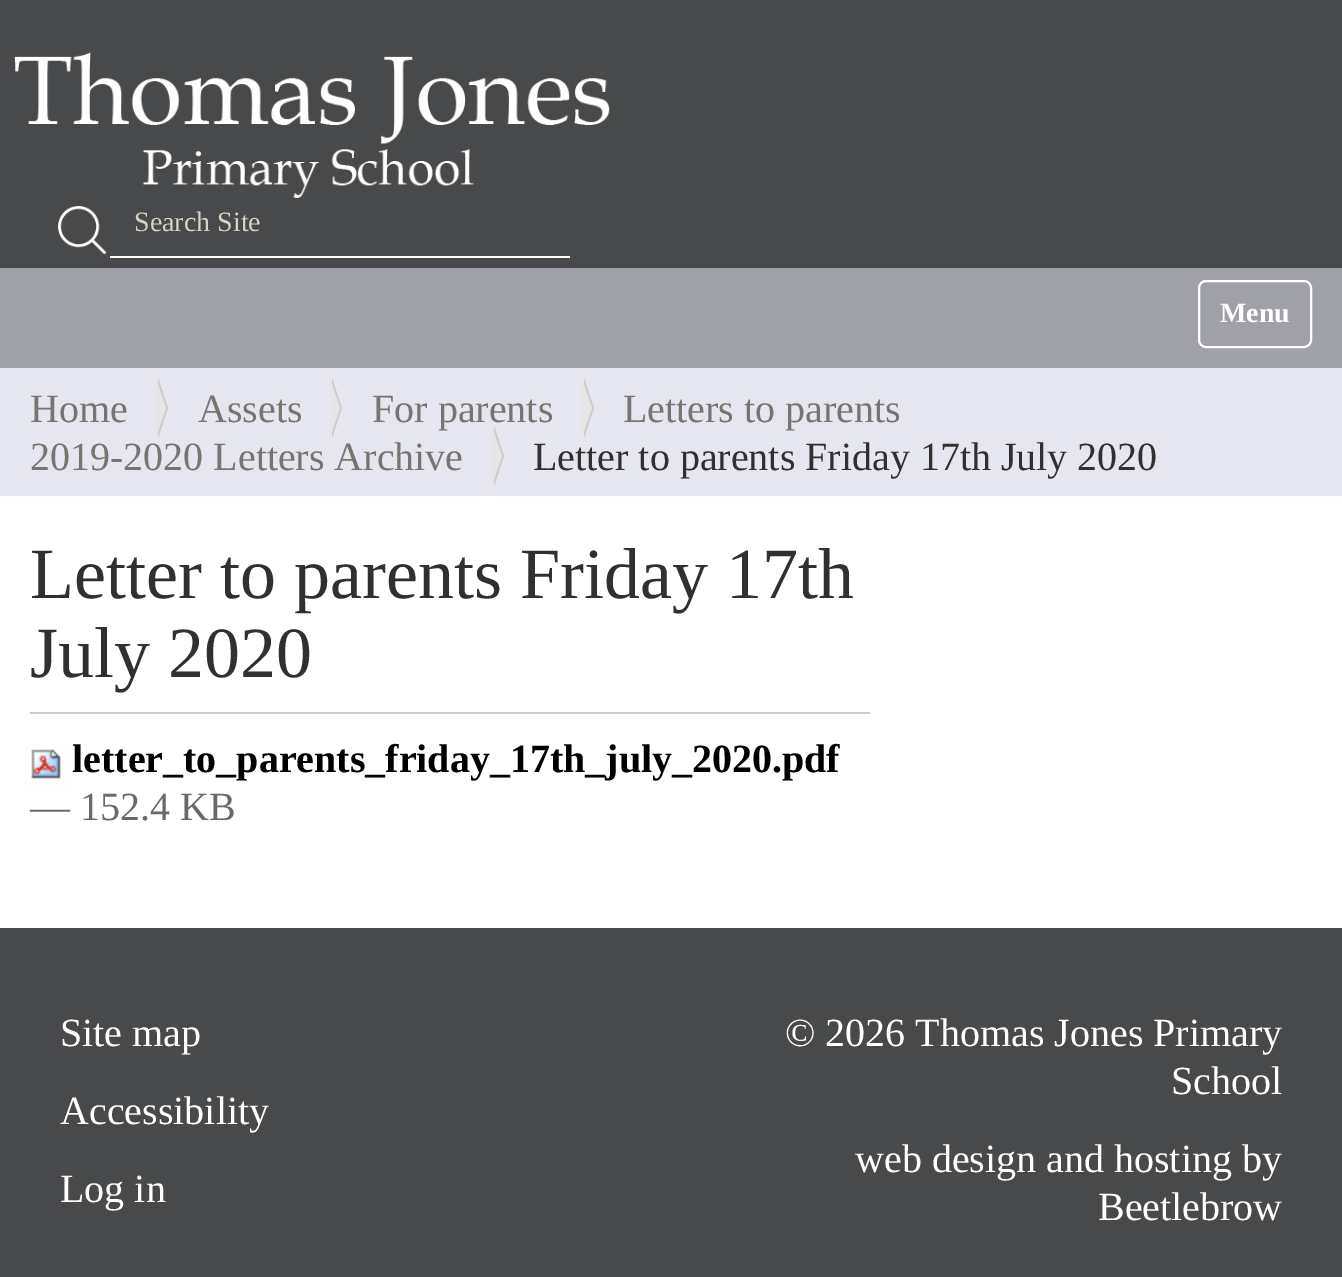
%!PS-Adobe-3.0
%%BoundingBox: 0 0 1342 1277
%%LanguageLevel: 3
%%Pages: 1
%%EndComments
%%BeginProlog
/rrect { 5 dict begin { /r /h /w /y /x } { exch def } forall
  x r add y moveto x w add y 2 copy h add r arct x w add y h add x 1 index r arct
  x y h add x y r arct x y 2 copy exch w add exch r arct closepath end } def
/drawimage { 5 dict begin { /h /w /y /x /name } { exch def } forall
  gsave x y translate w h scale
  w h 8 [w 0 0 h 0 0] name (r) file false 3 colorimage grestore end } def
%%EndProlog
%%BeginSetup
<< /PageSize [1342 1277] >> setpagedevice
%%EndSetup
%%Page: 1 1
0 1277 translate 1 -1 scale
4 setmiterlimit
1 setgray
0 0 1342 1277 rectfill
0.278 0.286 0.29 setrgbcolor
0 0 1342 268 rectfill
(images/1.raw) 14 52 596 146 drawimage
(images/2.raw) 58 206 48 48 drawimage
1 setgray
110 256 460 2 rectfill
0.627 0.627 0.663 setrgbcolor
0 268 1342 100 rectfill
1 setgray
2 setlinewidth
1199 281 112 66 7 rrect stroke
0.902 0.902 0.941 setrgbcolor
0 368 1342 128 rectfill
0.8 setgray
newpath 158 438 moveto 158 378 lineto 168 408 lineto closepath fill
0.902 0.894 0.894 setrgbcolor
newpath 156 438 moveto 156 378 lineto 166 408 lineto closepath fill
0.8 setgray
newpath 332 438 moveto 332 378 lineto 342 408 lineto closepath fill
0.902 0.894 0.894 setrgbcolor
newpath 330 438 moveto 330 378 lineto 340 408 lineto closepath fill
0.8 setgray
newpath 584 438 moveto 584 378 lineto 594 408 lineto closepath fill
0.902 0.894 0.894 setrgbcolor
newpath 582 438 moveto 582 378 lineto 592 408 lineto closepath fill
0.8 setgray
30 712 840 2 rectfill
(images/3.raw) 31 749 30 30 drawimage
0.278 0.286 0.29 setrgbcolor
0 928 1342 349 rectfill
/LiberationSerif-Regular [28 0 0 -28 0 0] selectfont
0.835 0.835 0.776 setrgbcolor
134 231 moveto (Search Site) show
/LiberationSerif-Bold [28 0 0 -28 0 0] selectfont
1 setgray
1220 322 moveto (Menu) show
/LiberationSerif-Regular [40 0 0 -40 0 0] selectfont
0.463 0.463 0.439 setrgbcolor
30 422 moveto (Home) show
198 422 moveto (Assets) show
372 422 moveto (For parents) show
623 422 moveto (Letters to parents) show
30 470 moveto (2019-2020 Letters Archive) show
0.8 setgray
newpath 494 486 moveto 494 426 lineto 504 456 lineto closepath fill
0.902 0.894 0.894 setrgbcolor
newpath 492 486 moveto 492 426 lineto 502 456 lineto closepath fill
0.188 setgray
533 470 moveto (Letter to parents Friday 17th July 2020) show
/LiberationSerif-Regular [72 0 0 -72 0 0] selectfont
30 598 moveto (Letter to parents Friday 17th) show
30 677 moveto (July 2020) show
/LiberationSerif-Bold [40 0 0 -40 0 0] selectfont
0 setgray
72 772 moveto (letter_to_parents_friday_17th_july_2020.pdf) show
/LiberationSerif-Regular [40 0 0 -40 0 0] selectfont
0.412 setgray
30 820 moveto (— 152.4 KB) show
1 setgray
60 1046 moveto (Site map) show
60 1124 moveto (Accessibility) show
60 1202 moveto (Log in) show
785 1046 moveto (© 2026 Thomas Jones Primary) show
1171 1094 moveto (School) show
855 1172 moveto (web design and hosting by) show
1098 1220 moveto (Beetlebrow) show
showpage
%%EOF
